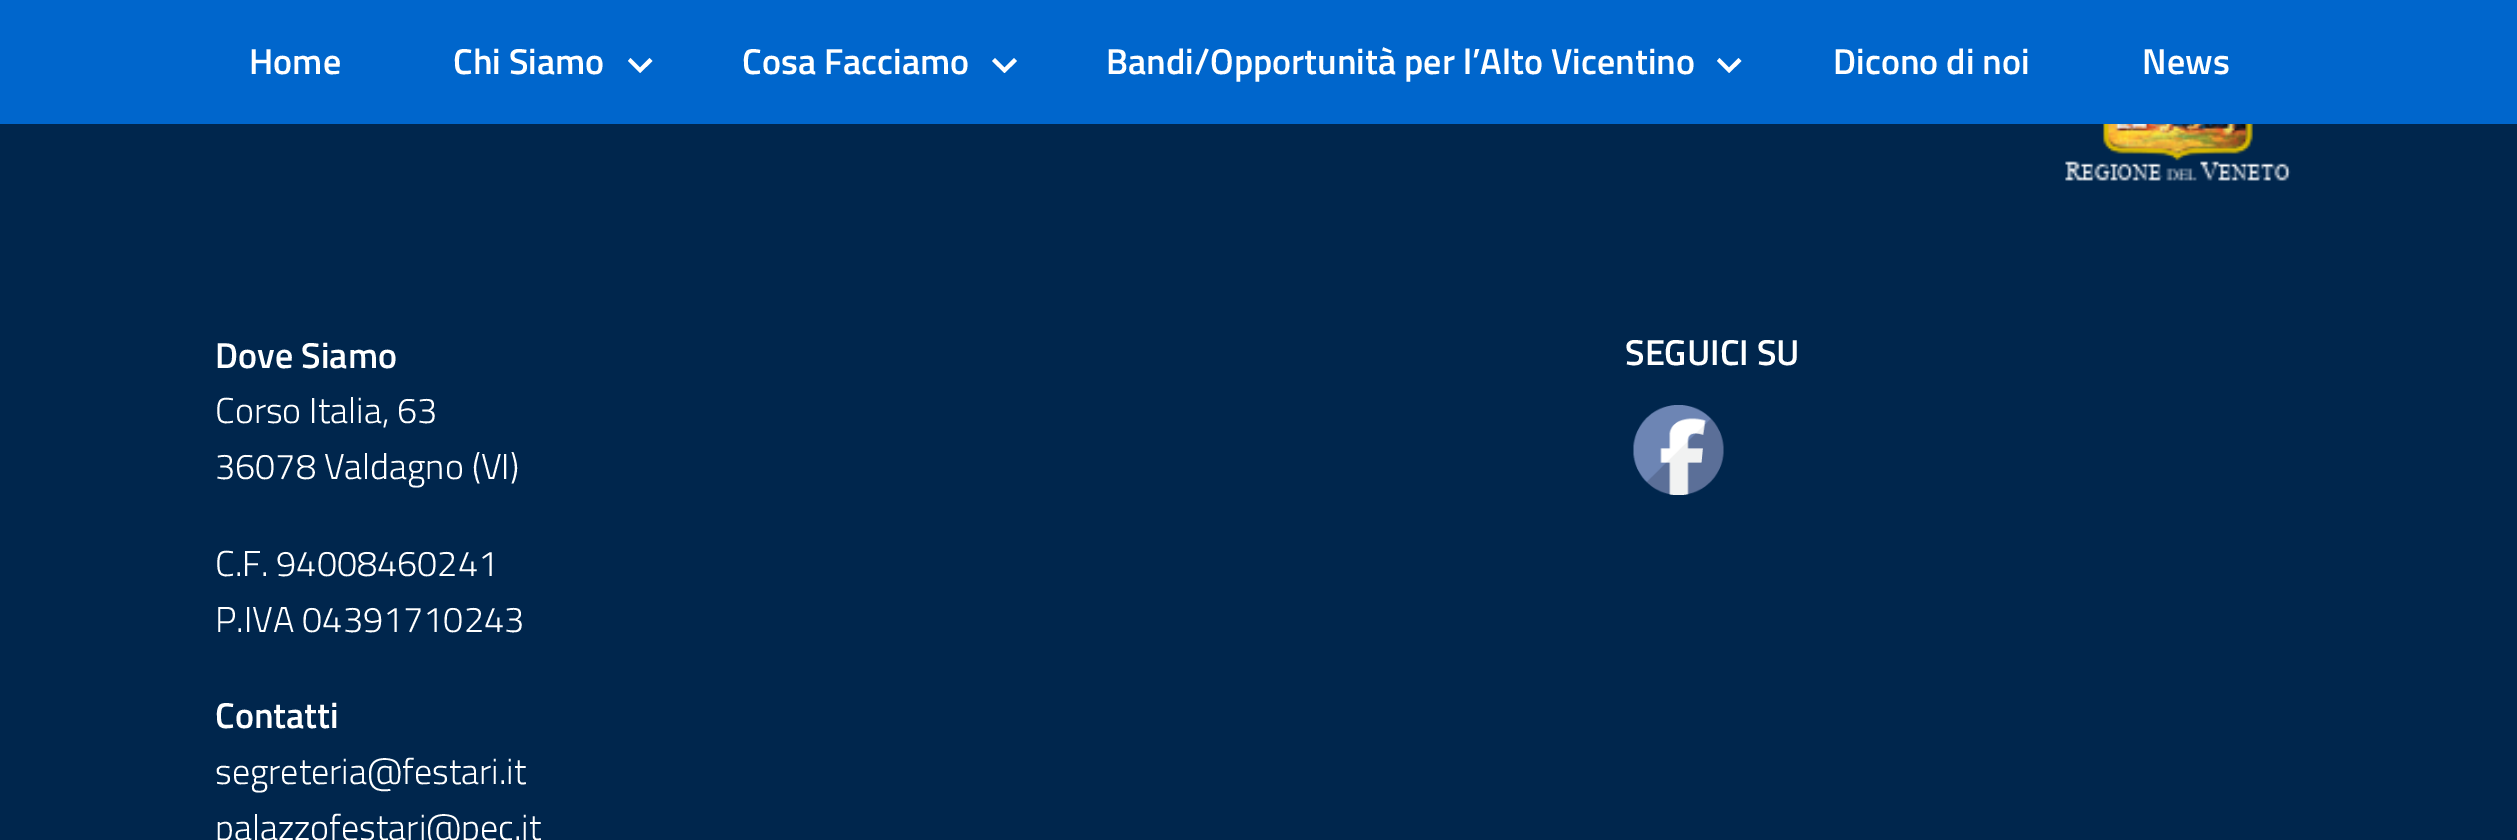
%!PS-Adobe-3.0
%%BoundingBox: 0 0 2517 840
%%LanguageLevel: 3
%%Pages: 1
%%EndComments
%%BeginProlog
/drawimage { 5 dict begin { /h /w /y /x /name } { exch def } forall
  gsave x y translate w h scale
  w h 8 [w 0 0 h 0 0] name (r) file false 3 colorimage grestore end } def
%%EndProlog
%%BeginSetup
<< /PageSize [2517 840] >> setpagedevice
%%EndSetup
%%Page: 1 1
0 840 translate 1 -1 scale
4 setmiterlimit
0 0.149 0.302 setrgbcolor
0 0 2517 840 rectfill
0 0.4 0.8 setrgbcolor
0 0 2517 124 rectfill
1 setgray
newpath 630.5 58 moveto 628 61 lineto 640 73 lineto 652.5 61 lineto 649.5 58 lineto 640 67.5 lineto closepath fill
newpath 995 58 moveto 992 61 lineto 1004.5 73 lineto 1017 61 lineto 1014 58 lineto 1004.5 67.5 lineto closepath fill
newpath 1719.5 58 moveto 1717 61 lineto 1729 73 lineto 1741.5 61 lineto 1738.5 58 lineto 1729 67.5 lineto closepath fill
(images/1.raw) 2065 124 226 57 drawimage
(images/2.raw) 1633 405 91 90 drawimage
/TitilliumWeb-SemiBold [36 0 0 -36 0 0] selectfont
249 74 moveto (Home) show
453 74 moveto (Chi Siamo) show
742 74 moveto (Cosa Facciamo) show
1106 74 moveto (Bandi/Opportunità per l’Alto Vicentino) show
1833 74 moveto (Dicono di noi) show
2142 74 moveto (News) show
215 368 moveto (Dove Siamo) show
/TitilliumWeb-Light [36 0 0 -36 0 0] selectfont
215 423 moveto (Corso Italia, 63) show
215 479 moveto (36078 Valdagno \(VI\)) show
215 576 moveto (C.F. 94008460241) show
215 632 moveto (P.IVA 04391710243) show
/TitilliumWeb-SemiBold [36 0 0 -36 0 0] selectfont
215 728 moveto (Contatti) show
/TitilliumWeb-Light [36 0 0 -36 0 0] selectfont
215 784 moveto (segreteria@festari.it) show
215 840 moveto (palazzofestari@pec.it) show
/TitilliumWeb-SemiBold [36 0 0 -36 0 0] selectfont
1625 365 moveto (SEGUICI SU) show
showpage
%%EOF
